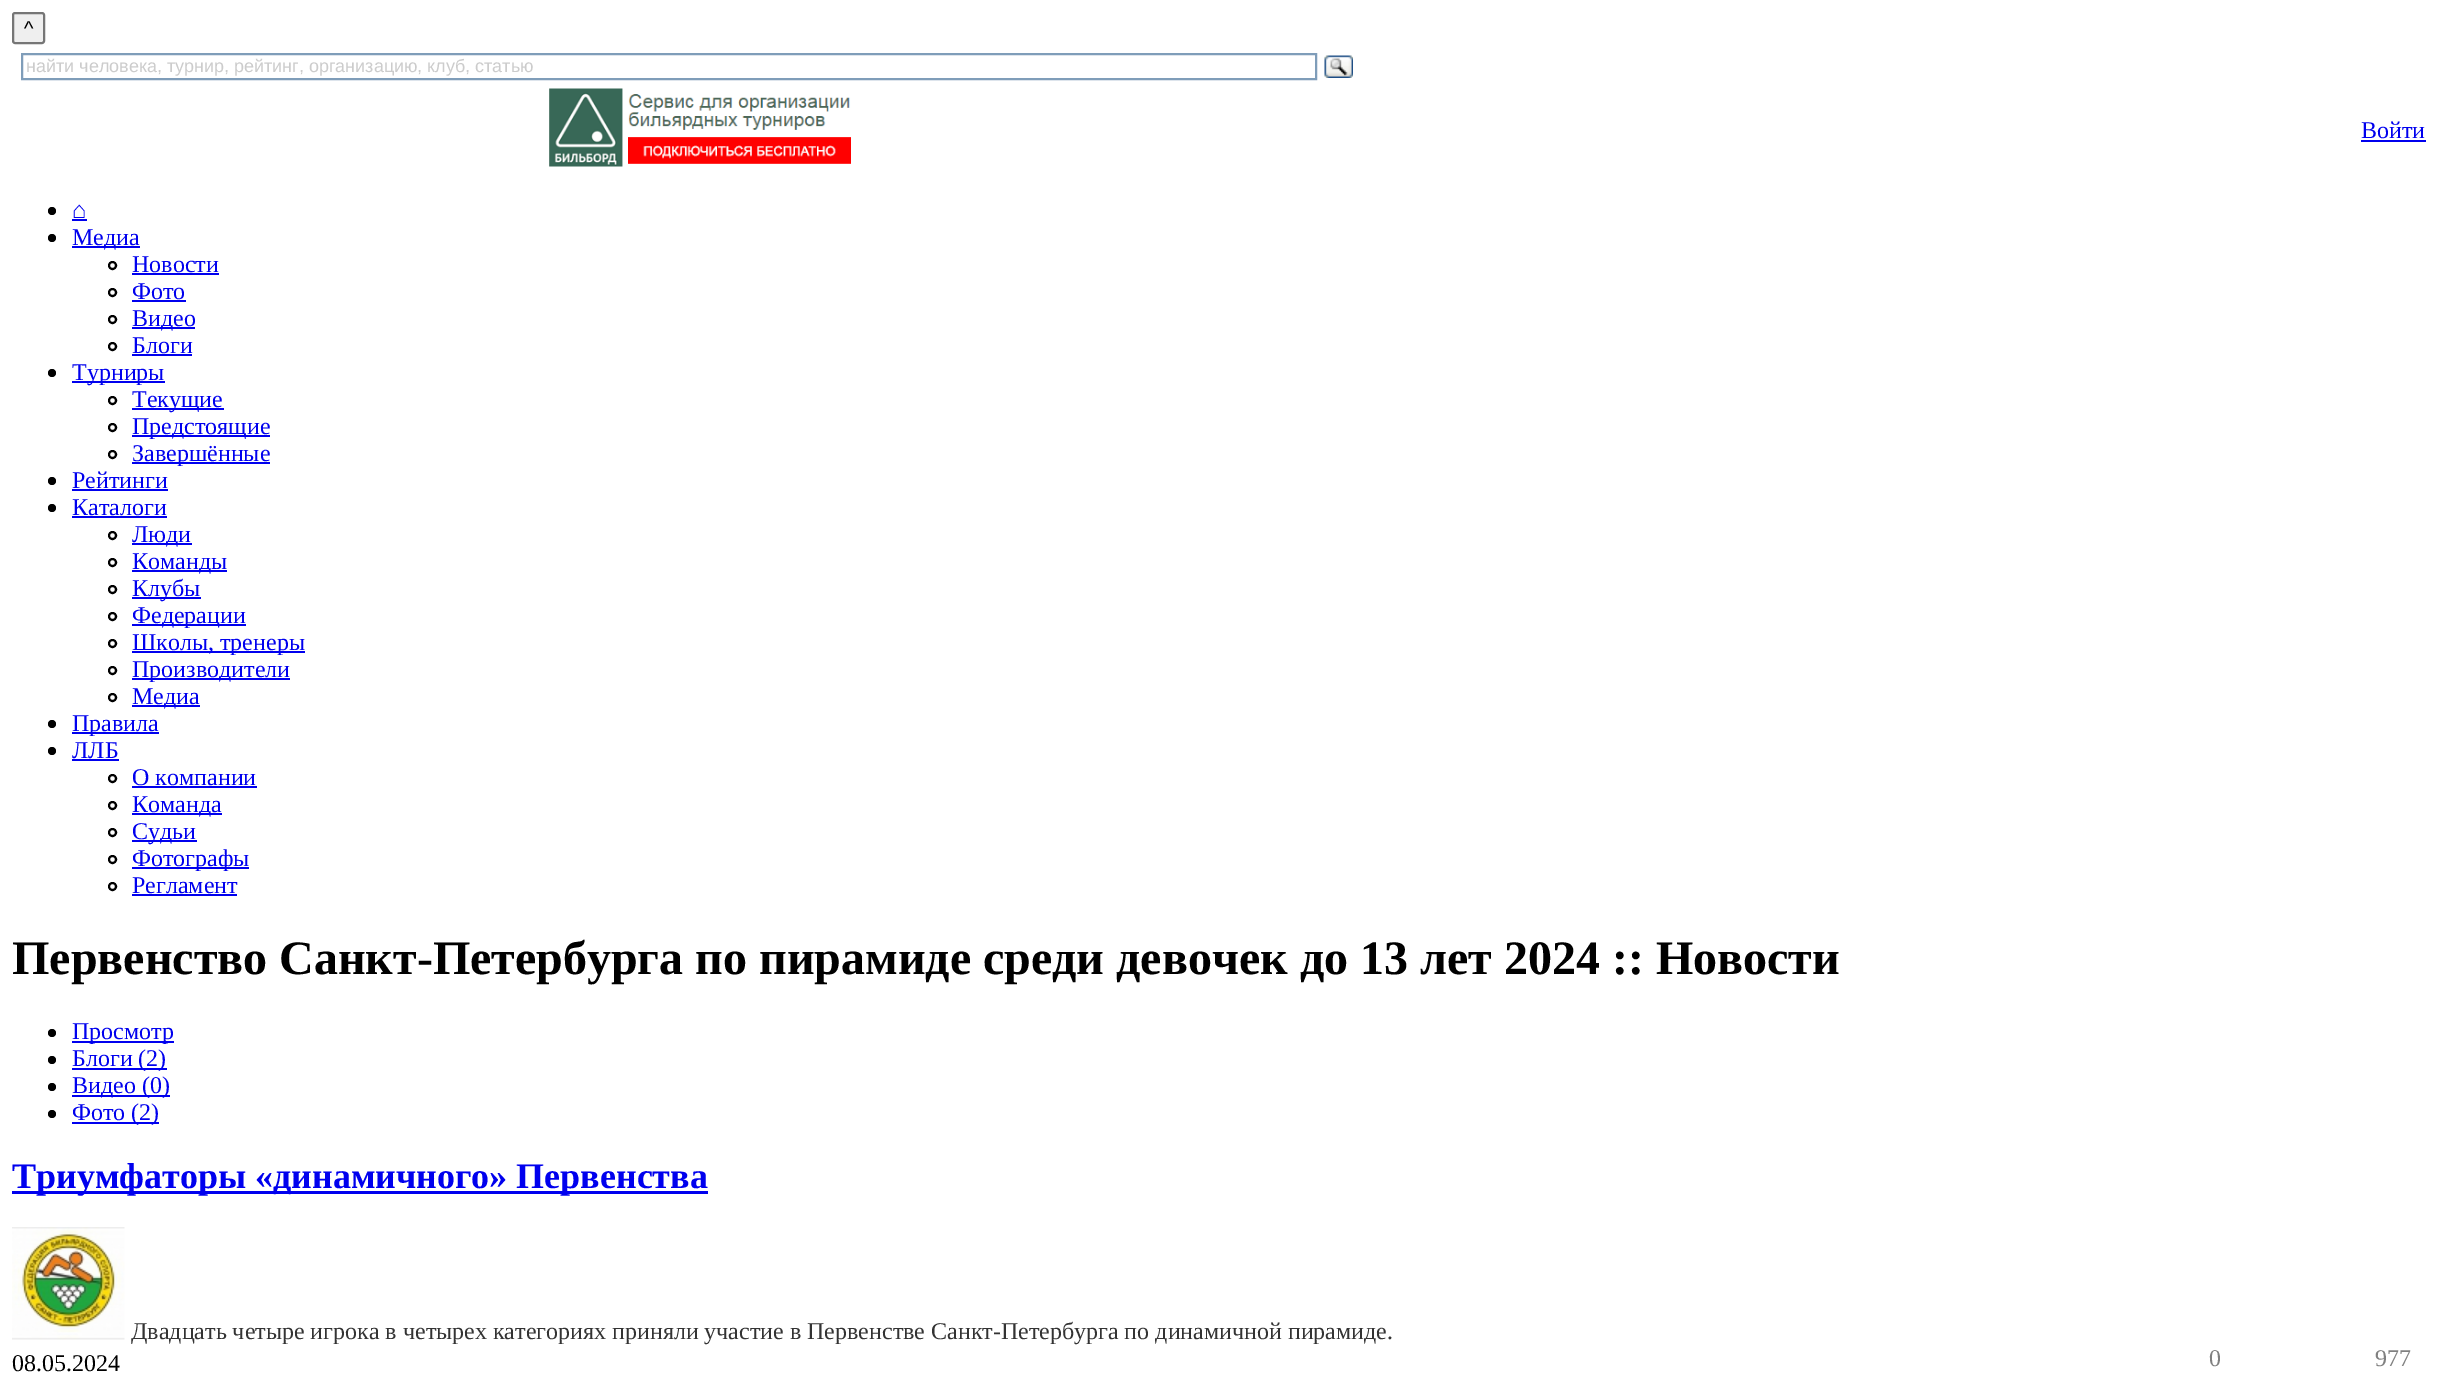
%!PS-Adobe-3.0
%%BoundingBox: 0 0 2437 1376
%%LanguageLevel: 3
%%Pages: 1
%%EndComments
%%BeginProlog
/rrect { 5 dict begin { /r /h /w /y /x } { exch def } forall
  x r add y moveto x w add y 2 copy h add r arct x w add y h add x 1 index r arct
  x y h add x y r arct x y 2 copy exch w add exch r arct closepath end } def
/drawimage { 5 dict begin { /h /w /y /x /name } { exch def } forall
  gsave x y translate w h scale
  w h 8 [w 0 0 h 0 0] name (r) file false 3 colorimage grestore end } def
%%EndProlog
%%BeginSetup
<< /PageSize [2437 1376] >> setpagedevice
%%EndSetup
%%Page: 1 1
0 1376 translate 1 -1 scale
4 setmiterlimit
1 setgray
0 0 2437 1376 rectfill
0.937 setgray
13 13 31 30 2 rrect gsave fill grestore
0.463 setgray
2 setlinewidth
stroke
0.498 0.616 0.725 setrgbcolor
22 54 1294 25 rectstroke
(images/1.raw) 1324 55 29 23 drawimage
(images/2.raw) 549 88 302 79 drawimage
0 0 0.933 setrgbcolor
2361 140 65 2 rectfill
0 setgray
newpath 52 211 4 0 360 arc closepath fill
0 0 0.933 setrgbcolor
72 219 15 2 rectfill
0 setgray
newpath 52 238 4 0 360 arc closepath fill
0 0 0.933 setrgbcolor
72 246 68 2 rectfill
0 setgray
newpath 112.5 265.5 3.5 0 360 arc closepath stroke
0 0 0.933 setrgbcolor
132 273 87 2 rectfill
0 setgray
newpath 112.5 292.5 3.5 0 360 arc closepath stroke
0 0 0.933 setrgbcolor
132 300 54 2 rectfill
0 setgray
newpath 112.5 319.5 3.5 0 360 arc closepath stroke
0 0 0.933 setrgbcolor
132 327 63 2 rectfill
0 setgray
newpath 112.5 346.5 3.5 0 360 arc closepath stroke
0 0 0.933 setrgbcolor
132 354 60 2 rectfill
0 setgray
newpath 52 373 4 0 360 arc closepath fill
0 0 0.933 setrgbcolor
72 381 93 2 rectfill
0 setgray
newpath 112.5 400.5 3.5 0 360 arc closepath stroke
0 0 0.933 setrgbcolor
132 408 92 2 rectfill
0 setgray
newpath 112.5 427.5 3.5 0 360 arc closepath stroke
0 0 0.933 setrgbcolor
132 435 138 2 rectfill
0 setgray
newpath 112.5 454.5 3.5 0 360 arc closepath stroke
0 0 0.933 setrgbcolor
132 462 138 2 rectfill
0 setgray
newpath 52 481 4 0 360 arc closepath fill
0 0 0.933 setrgbcolor
72 489 96 2 rectfill
0 setgray
newpath 52 508 4 0 360 arc closepath fill
0 0 0.933 setrgbcolor
72 516 95 2 rectfill
0 setgray
newpath 112.5 535.5 3.5 0 360 arc closepath stroke
0 0 0.933 setrgbcolor
132 543 60 2 rectfill
0 setgray
newpath 112.5 562.5 3.5 0 360 arc closepath stroke
0 0 0.933 setrgbcolor
132 570 95 2 rectfill
0 setgray
newpath 112.5 589.5 3.5 0 360 arc closepath stroke
0 0 0.933 setrgbcolor
132 597 69 2 rectfill
0 setgray
newpath 112.5 616.5 3.5 0 360 arc closepath stroke
0 0 0.933 setrgbcolor
132 624 114 2 rectfill
0 setgray
newpath 112.5 643.5 3.5 0 360 arc closepath stroke
0 0 0.933 setrgbcolor
132 651 173 2 rectfill
0 setgray
newpath 112.5 670.5 3.5 0 360 arc closepath stroke
0 0 0.933 setrgbcolor
132 678 158 2 rectfill
0 setgray
newpath 112.5 697.5 3.5 0 360 arc closepath stroke
0 0 0.933 setrgbcolor
132 705 68 2 rectfill
0 setgray
newpath 52 724 4 0 360 arc closepath fill
0 0 0.933 setrgbcolor
72 732 87 2 rectfill
0 setgray
newpath 52 751 4 0 360 arc closepath fill
0 0 0.933 setrgbcolor
72 759 47 2 rectfill
0 setgray
newpath 112.5 778.5 3.5 0 360 arc closepath stroke
0 0 0.933 setrgbcolor
132 786 125 2 rectfill
0 setgray
newpath 112.5 805.5 3.5 0 360 arc closepath stroke
0 0 0.933 setrgbcolor
132 813 90 2 rectfill
0 setgray
newpath 112.5 832.5 3.5 0 360 arc closepath stroke
0 0 0.933 setrgbcolor
132 840 65 2 rectfill
0 setgray
newpath 112.5 859.5 3.5 0 360 arc closepath stroke
0 0 0.933 setrgbcolor
132 867 117 2 rectfill
0 setgray
newpath 112.5 886.5 3.5 0 360 arc closepath stroke
0 0 0.933 setrgbcolor
132 894 105 2 rectfill
0 setgray
newpath 52 1033 4 0 360 arc closepath fill
0 0 0.933 setrgbcolor
72 1041 102 2 rectfill
0 setgray
newpath 52 1060 4 0 360 arc closepath fill
0 0 0.933 setrgbcolor
72 1068 95 2 rectfill
0 setgray
newpath 52 1087 4 0 360 arc closepath fill
0 0 0.933 setrgbcolor
72 1095 98 2 rectfill
0 setgray
newpath 52 1114 4 0 360 arc closepath fill
0 0 0.933 setrgbcolor
72 1122 87 2 rectfill
12 1191 696 3 rectfill
(images/3.raw) 12 1227 113 113 drawimage
/LiberationSans-Regular [20 0 0 -20 0 0] selectfont
0 setgray
24 35 moveto (^) show
/LiberationSans-Regular [18 0 0 -18 0 0] selectfont
0.8 setgray
26 72 moveto (найти человека, турнир, рейтинг, организацию, клуб, статью) show
/LiberationSerif-Regular [24 0 0 -24 0 0] selectfont
0 0 0.933 setrgbcolor
2361 138 moveto (Войти) show
72 218 moveto (⌂) show
72 245 moveto (Медиа) show
132 272 moveto (Новости) show
132 299 moveto (Фото) show
132 326 moveto (Видео) show
132 353 moveto (Блоги) show
72 380 moveto (Турниры) show
132 407 moveto (Текущие) show
132 434 moveto (Предстоящие) show
132 461 moveto (Завершённые) show
72 488 moveto (Рейтинги) show
72 515 moveto (Каталоги) show
132 542 moveto (Люди) show
132 569 moveto (Команды) show
132 596 moveto (Клубы) show
132 623 moveto (Федерации) show
132 650 moveto (Школы, тренеры) show
132 677 moveto (Производители) show
132 704 moveto (Медиа) show
72 731 moveto (Правила) show
72 758 moveto (ЛЛБ) show
132 785 moveto (О компании) show
132 812 moveto (Команда) show
132 839 moveto (Судьи) show
132 866 moveto (Фотографы) show
132 893 moveto (Регламент) show
/LiberationSerif-Bold [48 0 0 -48 0 0] selectfont
0 setgray
12 974 moveto (Первенство Санкт-Петербурга по пирамиде среди девочек до 13 лет 2024 :: Новости) show
/LiberationSerif-Regular [24 0 0 -24 0 0] selectfont
0 0 0.933 setrgbcolor
72 1039 moveto (Просмотр) show
72 1066 moveto (Блоги \(2\)) show
72 1093 moveto (Видео \(0\)) show
72 1120 moveto (Фото \(2\)) show
/LiberationSerif-Bold [36 0 0 -36 0 0] selectfont
12 1188 moveto (Триумфаторы «динамичного» Первенства) show
/LiberationSerif-Regular [24 0 0 -24 0 0] selectfont
0.2 setgray
131 1339 moveto (Двадцать четыре игрока в четырех категориях приняли участие в Первенстве Санкт-Петербурга по динамичной пирамиде.) show
0 setgray
12 1371 moveto (08.05.2024) show
0.502 setgray
2209 1366 moveto (0) show
2375 1366 moveto (977) show
showpage
%%EOF
